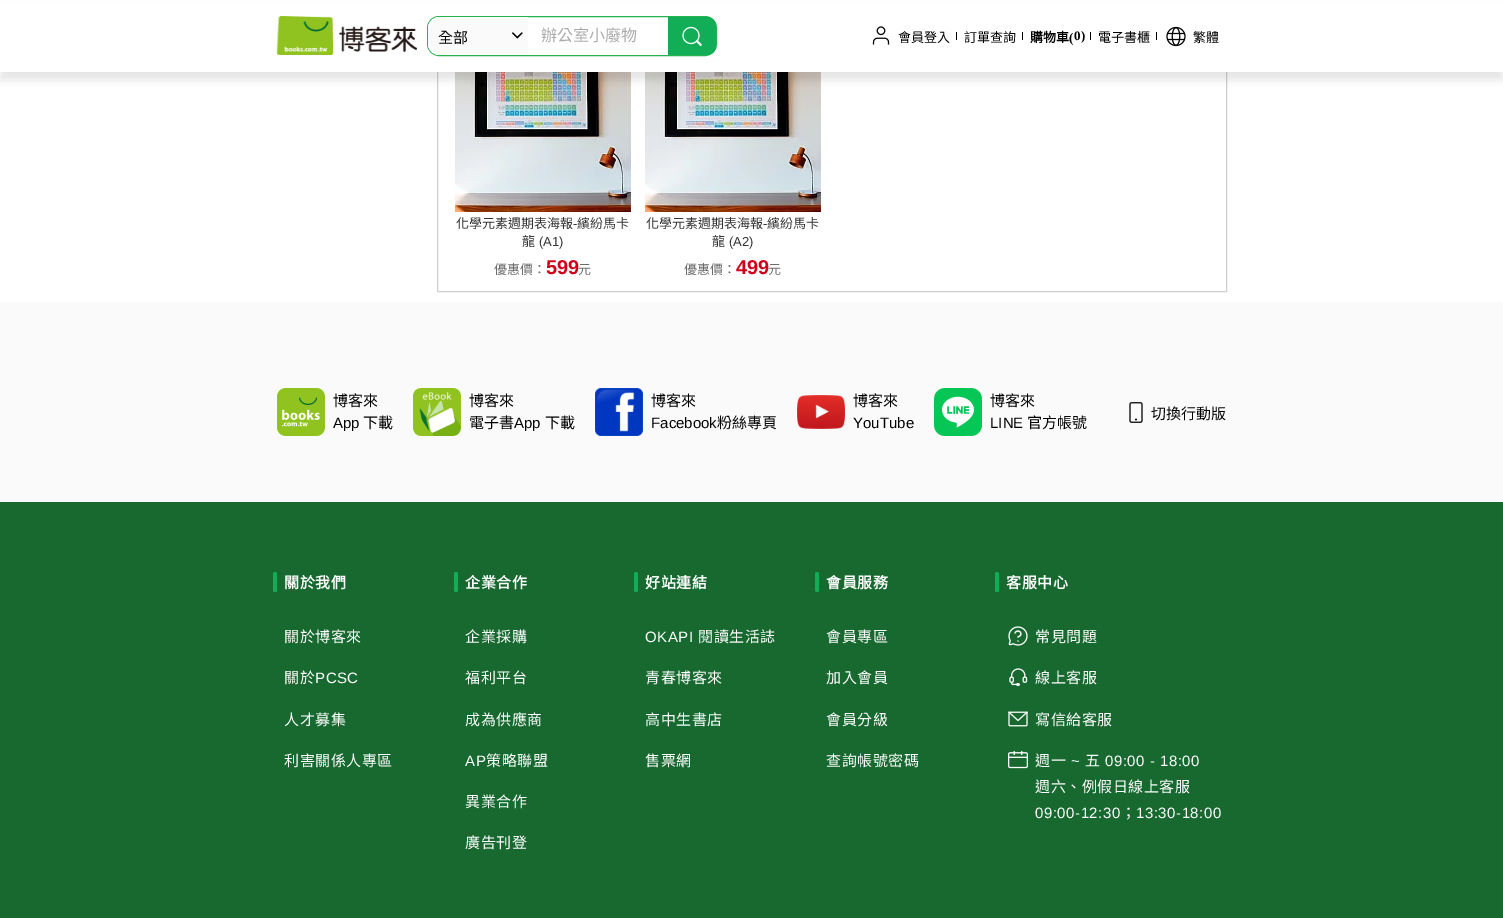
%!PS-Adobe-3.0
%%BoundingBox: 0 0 1503 918
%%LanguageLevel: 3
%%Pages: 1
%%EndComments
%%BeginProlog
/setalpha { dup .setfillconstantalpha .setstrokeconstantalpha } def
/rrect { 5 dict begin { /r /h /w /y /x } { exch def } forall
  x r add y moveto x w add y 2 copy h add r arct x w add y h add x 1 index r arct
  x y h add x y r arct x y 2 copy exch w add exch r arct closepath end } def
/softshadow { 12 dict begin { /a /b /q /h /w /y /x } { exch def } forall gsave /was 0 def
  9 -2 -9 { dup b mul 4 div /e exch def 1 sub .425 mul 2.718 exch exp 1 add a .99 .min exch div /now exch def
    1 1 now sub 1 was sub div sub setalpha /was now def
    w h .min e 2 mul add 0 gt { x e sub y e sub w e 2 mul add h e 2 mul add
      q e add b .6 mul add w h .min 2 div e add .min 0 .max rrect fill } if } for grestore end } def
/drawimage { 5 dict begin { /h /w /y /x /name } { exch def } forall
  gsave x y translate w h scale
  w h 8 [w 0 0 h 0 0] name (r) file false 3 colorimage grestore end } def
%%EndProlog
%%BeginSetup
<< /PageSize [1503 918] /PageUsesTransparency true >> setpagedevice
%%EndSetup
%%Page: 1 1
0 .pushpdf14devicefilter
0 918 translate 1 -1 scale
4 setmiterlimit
1 setgray
0 0 1503 918 rectfill
0.812 setgray
437.5 25.5 789 266 rectstroke
(images/6.raw) 455 72 176 140 drawimage
(images/6.raw) 645 72 176 140 drawimage
0 setgray
0 8 1503 72 0 4 0.1 softshadow
1 setgray
0 3 1503 69 rectfill
(images/1.raw) 276 16 141 39 drawimage
0.153 0.698 0.31 setrgbcolor
427.5 16.5 289 39 11.5 rrect stroke
0.98 setgray
newpath 439 17 moveto 528 17 lineto 528 55 lineto 439 55 lineto 433 55 428 50 428 44 curveto 428 28 lineto 428 22 433 17 439 17 curveto closepath fill
(images/2.raw) 512 32 11 7 drawimage
0.071 0.682 0.341 setrgbcolor
newpath 668 17 moveto 707 17 lineto 712 17 716 21 716 26 curveto 716 46 lineto 716 51 712 55 707 55 curveto 668 55 lineto closepath fill
(images/3.raw) 682 26 20 20 drawimage
(images/4.raw) 872 26 18 19 drawimage
0 setgray
956 32 1 8 rectfill
1022 32 1 8 rectfill
1090 32 1 8 rectfill
1156 32 1 8 rectfill
(images/5.raw) 1166 26 20 21 drawimage
0.98 setgray
0 302 1503 200 rectfill
(images/7.raw) 277 388 48 48 drawimage
(images/8.raw) 413 388 48 48 drawimage
(images/9.raw) 595 388 48 48 drawimage
(images/10.raw) 797 395 48 34 drawimage
(images/11.raw) 934 388 48 48 drawimage
(images/12.raw) 1129 402 14 21 drawimage
0.09 0.412 0.184 setrgbcolor
0 502 1503 416 rectfill
0.071 0.682 0.341 setrgbcolor
273 572 4 20 2 rrect fill
454 572 4 20 2 rrect fill
634 572 4 20 2 rrect fill
815 572 4 20 2 rrect fill
995 572 4 20 2 rrect fill
(images/13.raw) 1008 626 20 20 drawimage
(images/14.raw) 1009 668 19 18 drawimage
(images/15.raw) 1008 711 20 16 drawimage
(images/16.raw) 1008 751 20 18 drawimage
/NotoSansCJKTC-Regular [15 0 0 -15 0 0] selectfont
0 setgray
438 43 moveto (全部) show
/NotoSansCJKTC-Regular [16 0 0 -16 0 0] selectfont
0.667 setgray
541 41 moveto (辦公室小廢物) show
/NotoSansCJKTC-Regular [13 0 0 -13 0 0] selectfont
0 setgray
898 42 moveto (會員登入) show
964 42 moveto (訂單查詢) show
/NotoSansCJKTC-Bold [13 0 0 -13 0 0] selectfont
1030 42 moveto (購物車) show
/LiberationSerif-Bold [13 0 0 -13 0 0] selectfont
1069 42 moveto (\() show
1074 40 moveto (0\)) show
/NotoSansCJKTC-Regular [13 0 0 -13 0 0] selectfont
1098 42 moveto (電子書櫃) show
1193 42 moveto (繁體) show
0.2 setgray
456 228 moveto (化學元素週期表海報) show
/LiberationSans-Regular [13 0 0 -13 0 0] selectfont
573 228 moveto (-) show
/NotoSansCJKTC-Regular [13 0 0 -13 0 0] selectfont
577 228 moveto (繽紛馬卡) show
522 246 moveto (龍) show
/LiberationSans-Regular [13 0 0 -13 0 0] selectfont
539 246 moveto (\(A1\)) show
/NotoSansCJKTC-Regular [13 0 0 -13 0 0] selectfont
0.424 setgray
494 274 moveto (優惠價：) show
/LiberationSans-Bold [20 0 0 -20 0 0] selectfont
0.816 0.008 0.106 setrgbcolor
546 274 moveto (599) show
/NotoSansCJKTC-Regular [13 0 0 -13 0 0] selectfont
0.424 setgray
578 274 moveto (元) show
0.2 setgray
646 228 moveto (化學元素週期表海報) show
/LiberationSans-Regular [13 0 0 -13 0 0] selectfont
763 228 moveto (-) show
/NotoSansCJKTC-Regular [13 0 0 -13 0 0] selectfont
767 228 moveto (繽紛馬卡) show
712 246 moveto (龍) show
/LiberationSans-Regular [13 0 0 -13 0 0] selectfont
729 246 moveto (\(A2\)) show
/NotoSansCJKTC-Regular [13 0 0 -13 0 0] selectfont
0.424 setgray
684 274 moveto (優惠價：) show
/LiberationSans-Bold [20 0 0 -20 0 0] selectfont
0.816 0.008 0.106 setrgbcolor
736 274 moveto (499) show
/NotoSansCJKTC-Regular [13 0 0 -13 0 0] selectfont
0.424 setgray
768 274 moveto (元) show
/NotoSansCJKTC-Regular [15 0 0 -15 0 0] selectfont
0 setgray
333 406 moveto (博客來) show
/LiberationSans-Regular [15 0 0 -15 0 0] selectfont
333 428 moveto (App) show
/NotoSansCJKTC-Regular [15 0 0 -15 0 0] selectfont
363 428 moveto (下載) show
469 406 moveto (博客來) show
469 428 moveto (電子書) show
/LiberationSans-Regular [15 0 0 -15 0 0] selectfont
514 428 moveto (App) show
/NotoSansCJKTC-Regular [15 0 0 -15 0 0] selectfont
545 428 moveto (下載) show
651 406 moveto (博客來) show
/LiberationSans-Regular [15 0 0 -15 0 0] selectfont
651 428 moveto (Facebook) show
/NotoSansCJKTC-Regular [15 0 0 -15 0 0] selectfont
717 428 moveto (粉絲專頁) show
853 406 moveto (博客來) show
/LiberationSans-Regular [15 0 0 -15 0 0] selectfont
853 428 moveto (YouTube) show
/NotoSansCJKTC-Regular [15 0 0 -15 0 0] selectfont
990 406 moveto (博客來) show
/LiberationSans-Regular [15 0 0 -15 0 0] selectfont
990 428 moveto (LINE) show
/NotoSansCJKTC-Regular [15 0 0 -15 0 0] selectfont
1027 428 moveto (官方帳號) show
1151 419 moveto (切換行動版) show
/NotoSansCJKTC-Bold [15 0 0 -15 0 0] selectfont
1 setgray
284 588 moveto 0.5 0 (關於我們) ashow
/NotoSansCJKTC-Regular [15 0 0 -15 0 0] selectfont
284 642 moveto 0.5 0 (關於博客來) ashow
284 683 moveto 0.5 0 (關於) ashow
/LiberationSans-Regular [15 0 0 -15 0 0] selectfont
315 683 moveto 0.5 0 (PCSC) ashow
/NotoSansCJKTC-Regular [15 0 0 -15 0 0] selectfont
284 725 moveto 0.5 0 (人才募集) ashow
284 766 moveto 0.5 0 (利害關係人專區) ashow
/NotoSansCJKTC-Bold [15 0 0 -15 0 0] selectfont
465 588 moveto 0.5 0 (企業合作) ashow
/NotoSansCJKTC-Regular [15 0 0 -15 0 0] selectfont
465 642 moveto 0.5 0 (企業採購) ashow
465 683 moveto 0.5 0 (福利平台) ashow
465 725 moveto 0.5 0 (成為供應商) ashow
/LiberationSans-Regular [15 0 0 -15 0 0] selectfont
465 766 moveto 0.5 0 (AP) ashow
/NotoSansCJKTC-Regular [15 0 0 -15 0 0] selectfont
486 766 moveto 0.5 0 (策略聯盟) ashow
465 807 moveto 0.5 0 (異業合作) ashow
465 848 moveto 0.5 0 (廣告刊登) ashow
/NotoSansCJKTC-Bold [15 0 0 -15 0 0] selectfont
645 588 moveto 0.5 0 (好站連結) ashow
/LiberationSans-Regular [15 0 0 -15 0 0] selectfont
645 642 moveto 0.5 0 (OKAPI) ashow
/NotoSansCJKTC-Regular [15 0 0 -15 0 0] selectfont
698 642 moveto 0.5 0 (閱讀生活誌) ashow
645 683 moveto 0.5 0 (青春博客來) ashow
645 725 moveto 0.5 0 (高中生書店) ashow
645 766 moveto 0.5 0 (售票網) ashow
/NotoSansCJKTC-Bold [15 0 0 -15 0 0] selectfont
826 588 moveto 0.5 0 (會員服務) ashow
/NotoSansCJKTC-Regular [15 0 0 -15 0 0] selectfont
826 642 moveto 0.5 0 (會員專區) ashow
826 683 moveto 0.5 0 (加入會員) ashow
826 725 moveto 0.5 0 (會員分級) ashow
826 766 moveto 0.5 0 (查詢帳號密碼) ashow
/NotoSansCJKTC-Bold [15 0 0 -15 0 0] selectfont
1006 588 moveto 0.5 0 (客服中心) ashow
/NotoSansCJKTC-Regular [15 0 0 -15 0 0] selectfont
1035 642 moveto 0.5 0 (常見問題) ashow
1035 683 moveto 0.5 0 (線上客服) ashow
1035 725 moveto 0.5 0 (寫信給客服) ashow
1035 766 moveto 0.5 0 (週一) ashow
/LiberationSans-Regular [15 0 0 -15 0 0] selectfont
1071 766 moveto 0.5 0 (~) ashow
/NotoSansCJKTC-Regular [15 0 0 -15 0 0] selectfont
1085 766 moveto 0.5 0 (五) ashow
/LiberationSans-Regular [15 0 0 -15 0 0] selectfont
1105 766 moveto 0.5 0 (09:00 - 18:00) ashow
/NotoSansCJKTC-Regular [15 0 0 -15 0 0] selectfont
1035 792 moveto 0.5 0 (週六、例假日線上客服) ashow
/LiberationSans-Regular [15 0 0 -15 0 0] selectfont
1035 818 moveto 0.5 0 (09:00-12:30) ashow
/NotoSansCJKTC-Regular [15 0 0 -15 0 0] selectfont
1121 818 moveto 0.5 0 (；) ashow
/LiberationSans-Regular [15 0 0 -15 0 0] selectfont
1136 818 moveto 0.5 0 (13:30-18:00) ashow
.poppdf14devicefilter showpage
%%EOF
